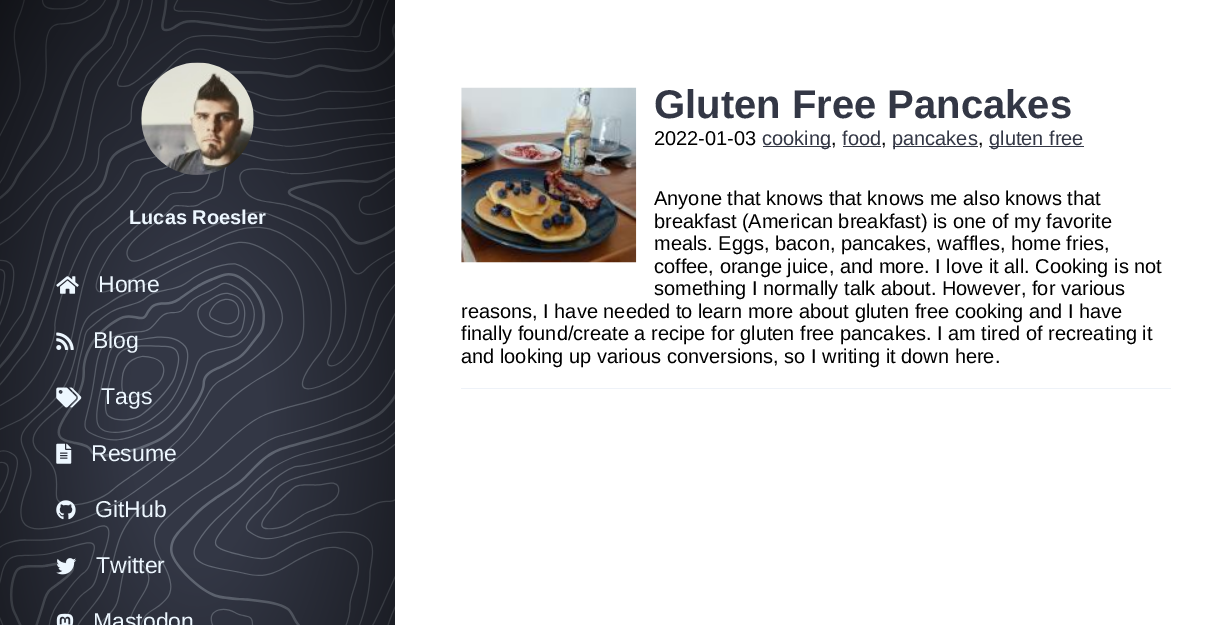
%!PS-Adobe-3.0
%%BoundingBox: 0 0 1217 625
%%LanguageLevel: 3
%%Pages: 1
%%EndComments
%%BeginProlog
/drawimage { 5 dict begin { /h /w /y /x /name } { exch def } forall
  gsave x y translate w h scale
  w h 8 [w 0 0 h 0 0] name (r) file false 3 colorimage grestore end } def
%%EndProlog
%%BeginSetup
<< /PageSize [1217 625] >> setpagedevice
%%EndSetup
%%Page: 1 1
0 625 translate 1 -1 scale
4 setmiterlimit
1 setgray
0 0 1217 625 rectfill
0.2 0.216 0.271 setrgbcolor
0 0 395 625 rectfill
(images/1.raw) 0 0 395 625 drawimage
(images/2.raw) 141 62 113 113 drawimage
(images/3.raw) 56 276 23 18 drawimage
(images/4.raw) 56 332 18 18 drawimage
(images/5.raw) 56 387 26 21 drawimage
(images/6.raw) 56 443 16 21 drawimage
(images/7.raw) 56 500 20 20 drawimage
(images/8.raw) 56 558 21 17 drawimage
(images/9.raw) 56 613 18 12 drawimage
0.933 0.949 0.973 setrgbcolor
461 388 710 1 rectfill
(images/10.raw) 461 87 176 176 drawimage
0.2 0.216 0.271 setrgbcolor
763 146 68 1 rectfill
843 146 38 1 rectfill
893 146 85 1 rectfill
989 146 95 1 rectfill
/LiberationSans-Bold [20 0 0 -20 0 0] selectfont
0.929 0.969 1 setrgbcolor
129 224 moveto (Lucas Roesler) show
/LiberationSans-Regular [23 0 0 -23 0 0] selectfont
98 292 moveto (Home) show
93 348 moveto (Blog) show
101 404 moveto (Tags) show
91 461 moveto (Resume) show
95 517 moveto (GitHub) show
96 573 moveto (Twitter) show
93 629 moveto (Mastodon) show
/LiberationSans-Bold [40 0 0 -40 0 0] selectfont
0.2 0.216 0.271 setrgbcolor
654 118 moveto (Gluten Free Pancakes) show
/LiberationSans-Regular [20 0 0 -20 0 0] selectfont
0 setgray
654 145 moveto (2022-01-03) show
0.2 0.216 0.271 setrgbcolor
762 145 moveto (cooking) show
0 setgray
831 145 moveto (,) show
0.2 0.216 0.271 setrgbcolor
842 145 moveto (food) show
0 setgray
881 145 moveto (,) show
0.2 0.216 0.271 setrgbcolor
892 145 moveto (pancakes) show
0 setgray
978 145 moveto (,) show
0.2 0.216 0.271 setrgbcolor
989 145 moveto (gluten free) show
0 setgray
654 205 moveto (Anyone that knows that knows me also knows that) show
654 228 moveto (breakfast \(American breakfast\) is one of my favorite) show
654 250 moveto (meals. Eggs, bacon, pancakes, waffles, home fries,) show
654 273 moveto (coffee, orange juice, and more. I love it all. Cooking is not) show
654 295 moveto (something I normally talk about. However, for various) show
461 318 moveto (reasons, I have needed to learn more about gluten free cooking and I have) show
461 340 moveto (finally found/create a recipe for gluten free pancakes. I am tired of recreating it) show
461 363 moveto (and looking up various conversions, so I writing it down here.) show
showpage
%%EOF
